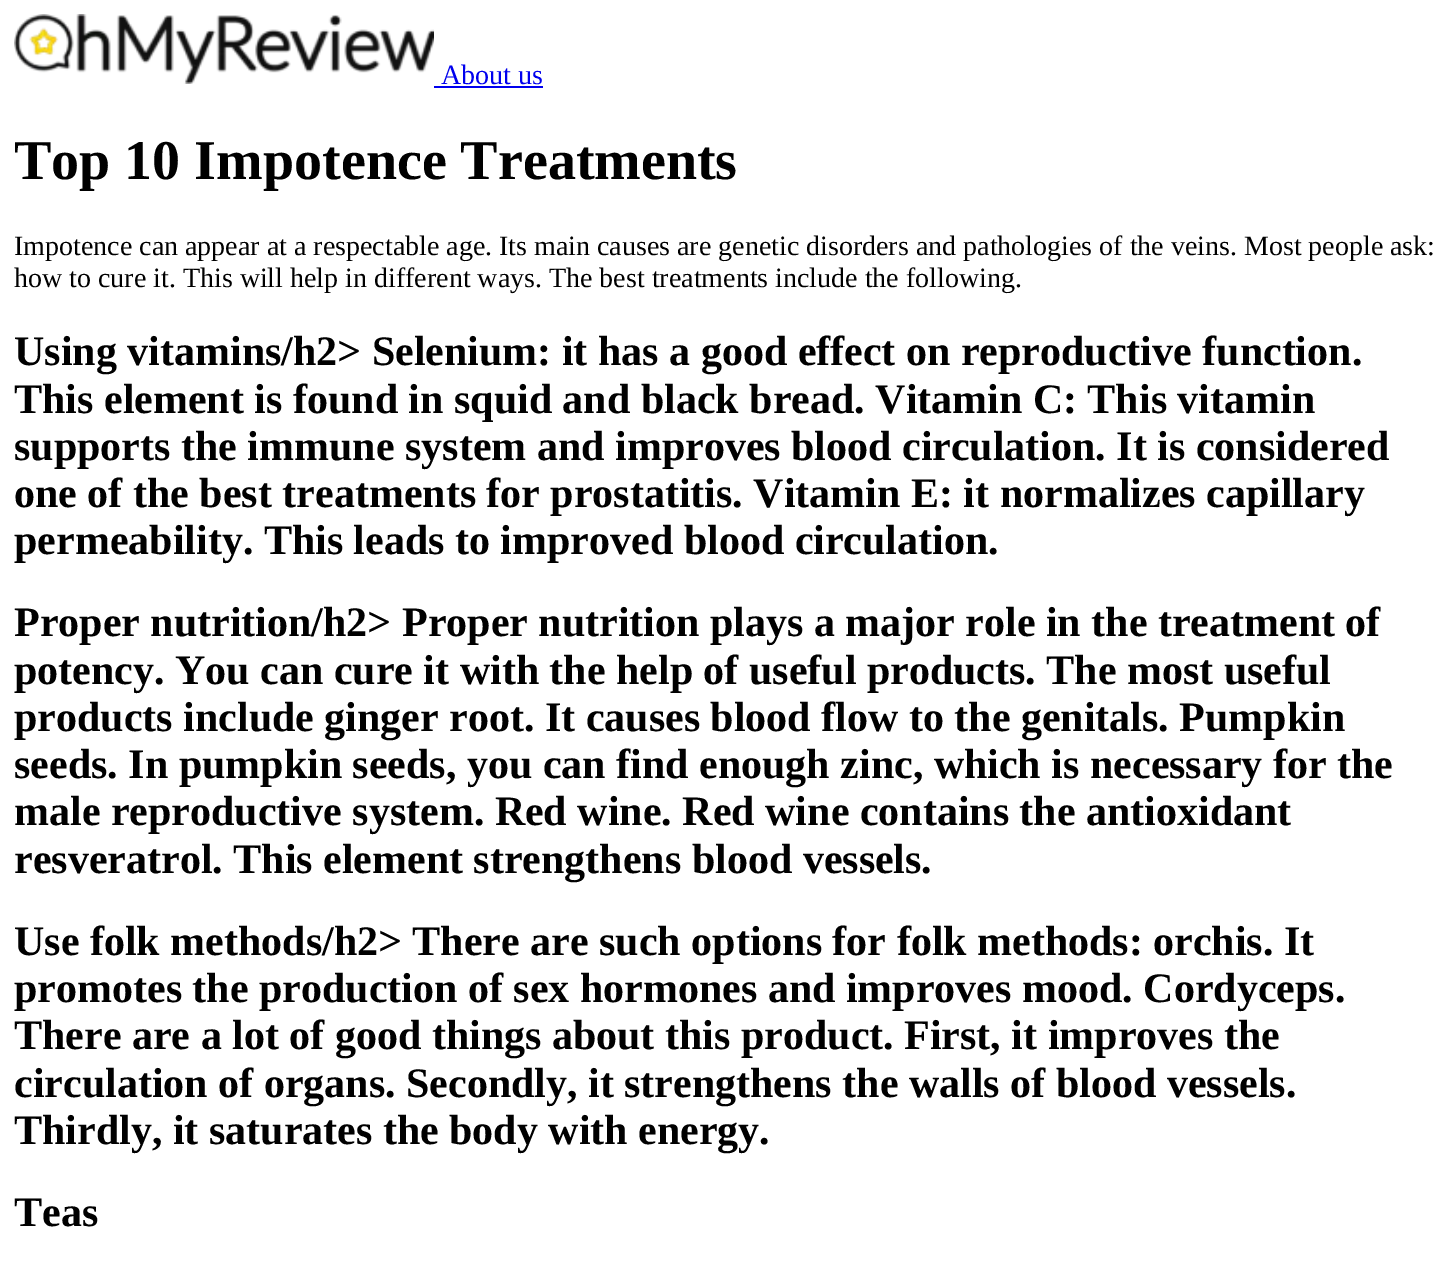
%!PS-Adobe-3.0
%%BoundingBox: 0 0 1450 1286
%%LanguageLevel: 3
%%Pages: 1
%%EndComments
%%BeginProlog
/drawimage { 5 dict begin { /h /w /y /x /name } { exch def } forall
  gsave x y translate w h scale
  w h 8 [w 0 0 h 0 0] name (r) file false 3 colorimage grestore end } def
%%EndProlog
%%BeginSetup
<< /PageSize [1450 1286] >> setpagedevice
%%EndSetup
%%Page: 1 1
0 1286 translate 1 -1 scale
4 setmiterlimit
1 setgray
0 0 1450 1286 rectfill
(images/1.raw) 14 14 420 70 drawimage
0 0 0.933 setrgbcolor
434 86 109 2 rectfill
/LiberationSerif-Regular [28 0 0 -28 0 0] selectfont
441 84 moveto (About us) show
/LiberationSerif-Bold [56 0 0 -56 0 0] selectfont
0 setgray
14 179 moveto (Top 10 Impotence Treatments) show
/LiberationSerif-Regular [28 0 0 -28 0 0] selectfont
14 255 moveto (Impotence can appear at a respectable age. Its main causes are genetic disorders and pathologies of the veins. Most people ask:) show
14 287 moveto (how to cure it. This will help in different ways. The best treatments include the following.) show
/LiberationSerif-Bold [42 0 0 -42 0 0] selectfont
14 365 moveto (Using vitamins/h2> Selenium: it has a good effect on reproductive function.) show
14 413 moveto (This element is found in squid and black bread. Vitamin C: This vitamin) show
14 460 moveto (supports the immune system and improves blood circulation. It is considered) show
14 507 moveto (one of the best treatments for prostatitis. Vitamin E: it normalizes capillary) show
14 554 moveto (permeability. This leads to improved blood circulation.) show
14 636 moveto (Proper nutrition/h2> Proper nutrition plays a major role in the treatment of) show
14 684 moveto (potency. You can cure it with the help of useful products. The most useful) show
14 731 moveto (products include ginger root. It causes blood flow to the genitals. Pumpkin) show
14 778 moveto (seeds. In pumpkin seeds, you can find enough zinc, which is necessary for the) show
14 825 moveto (male reproductive system. Red wine. Red wine contains the antioxidant) show
14 873 moveto (resveratrol. This element strengthens blood vessels.) show
14 955 moveto (Use folk methods/h2> There are such options for folk methods: orchis. It) show
14 1002 moveto (promotes the production of sex hormones and improves mood. Cordyceps.) show
14 1049 moveto (There are a lot of good things about this product. First, it improves the) show
14 1097 moveto (circulation of organs. Secondly, it strengthens the walls of blood vessels.) show
14 1144 moveto (Thirdly, it saturates the body with energy.) show
14 1226 moveto (Teas) show
showpage
%%EOF
